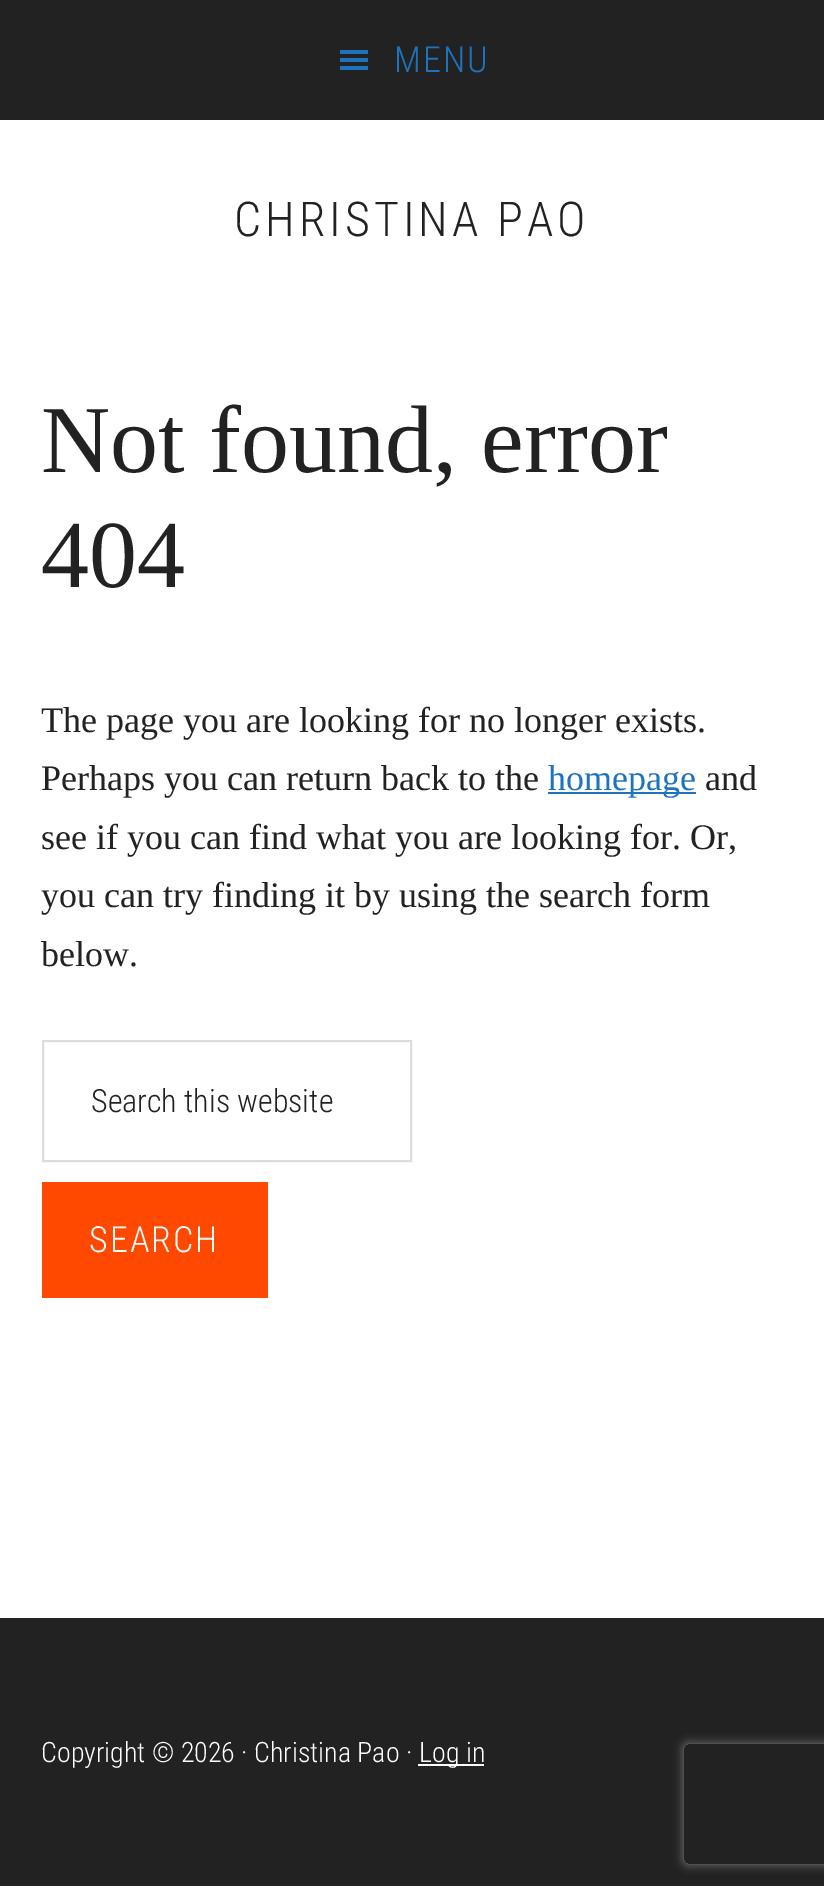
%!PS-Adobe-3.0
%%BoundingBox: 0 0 824 1891
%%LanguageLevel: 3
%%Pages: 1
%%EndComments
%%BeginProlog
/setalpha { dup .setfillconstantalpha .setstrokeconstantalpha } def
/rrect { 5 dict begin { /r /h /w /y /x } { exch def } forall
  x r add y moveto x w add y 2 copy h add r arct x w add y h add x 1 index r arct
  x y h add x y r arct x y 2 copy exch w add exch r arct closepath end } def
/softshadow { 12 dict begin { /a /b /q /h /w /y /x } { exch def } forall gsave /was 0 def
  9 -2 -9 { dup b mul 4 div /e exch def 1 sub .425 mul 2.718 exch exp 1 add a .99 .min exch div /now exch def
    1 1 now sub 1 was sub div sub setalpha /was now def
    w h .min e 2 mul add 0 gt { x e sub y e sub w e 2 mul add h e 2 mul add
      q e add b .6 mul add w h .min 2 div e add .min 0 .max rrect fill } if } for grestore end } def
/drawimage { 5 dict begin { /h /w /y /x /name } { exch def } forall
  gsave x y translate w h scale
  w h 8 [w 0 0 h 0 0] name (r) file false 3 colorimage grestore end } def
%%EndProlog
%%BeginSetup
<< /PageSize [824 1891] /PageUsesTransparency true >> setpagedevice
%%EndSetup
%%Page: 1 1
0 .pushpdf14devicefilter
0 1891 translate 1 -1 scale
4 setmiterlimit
1 setgray
0 0 824 1891 rectfill
0.133 setgray
0 0 824 120 rectfill
(images/1.raw) 340 50 28 20 drawimage
0.118 0.451 0.745 setrgbcolor
548 792 148 2 rectfill
0.867 setgray
2 setlinewidth
43 1041 368 120 rectstroke
1 0.282 0 setrgbcolor
42 1182 226 116 rectfill
0.133 setgray
0 1618 824 268 rectfill
1 setgray
418 1764 66 2 rectfill
gsave
newpath 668 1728 moveto 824 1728 lineto 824 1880 lineto 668 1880 lineto closepath 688 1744 moveto 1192 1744 lineto 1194 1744 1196 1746 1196 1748 curveto 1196 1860 lineto 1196 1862 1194 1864 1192 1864 curveto 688 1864 lineto 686 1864 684 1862 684 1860 curveto 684 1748 lineto 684 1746 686 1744 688 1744 curveto closepath eoclip newpath
0.502 setgray
684 1744 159 120 4 5 1 softshadow
grestore
/RobotoCondensed-Light [36 0 0 -36 0 0] selectfont
0.118 0.451 0.745 setrgbcolor
394 72 moveto 2 0 (MENU) ashow
/RobotoCondensed-Light [48 0 0 -48 0 0] selectfont
0.133 setgray
234 236 moveto 4 0 (CHRISTINA PAO) ashow
/LiberationSerif-Regular [96 0 0 -96 0 0] selectfont
41 472 moveto (Not found, error) show
41 587 moveto (404) show
/LiberationSerif-Regular [36 0 0 -36 0 0] selectfont
41 732 moveto (The page you are looking for no longer exists.) show
41 790 moveto (Perhaps you can return back to the) show
0.118 0.451 0.745 setrgbcolor
548 790 moveto (homepage) show
0.133 setgray
705 790 moveto (and) show
41 849 moveto (see if you can find what you are looking for. Or,) show
41 907 moveto (you can try finding it by using the search form) show
41 966 moveto (below.) show
/RobotoCondensed-Light [32 0 0 -32 0 0] selectfont
91 1112 moveto (Search this website) show
/RobotoCondensed-Light [36 0 0 -36 0 0] selectfont
1 setgray
89 1252 moveto 2 0 (SEARCH) ashow
/RobotoCondensed-Light [28 0 0 -28 0 0] selectfont
41 1762 moveto (Copyright © 2026 · Christina Pao ·) show
419 1762 moveto (Log in) show
.poppdf14devicefilter showpage
%%EOF
